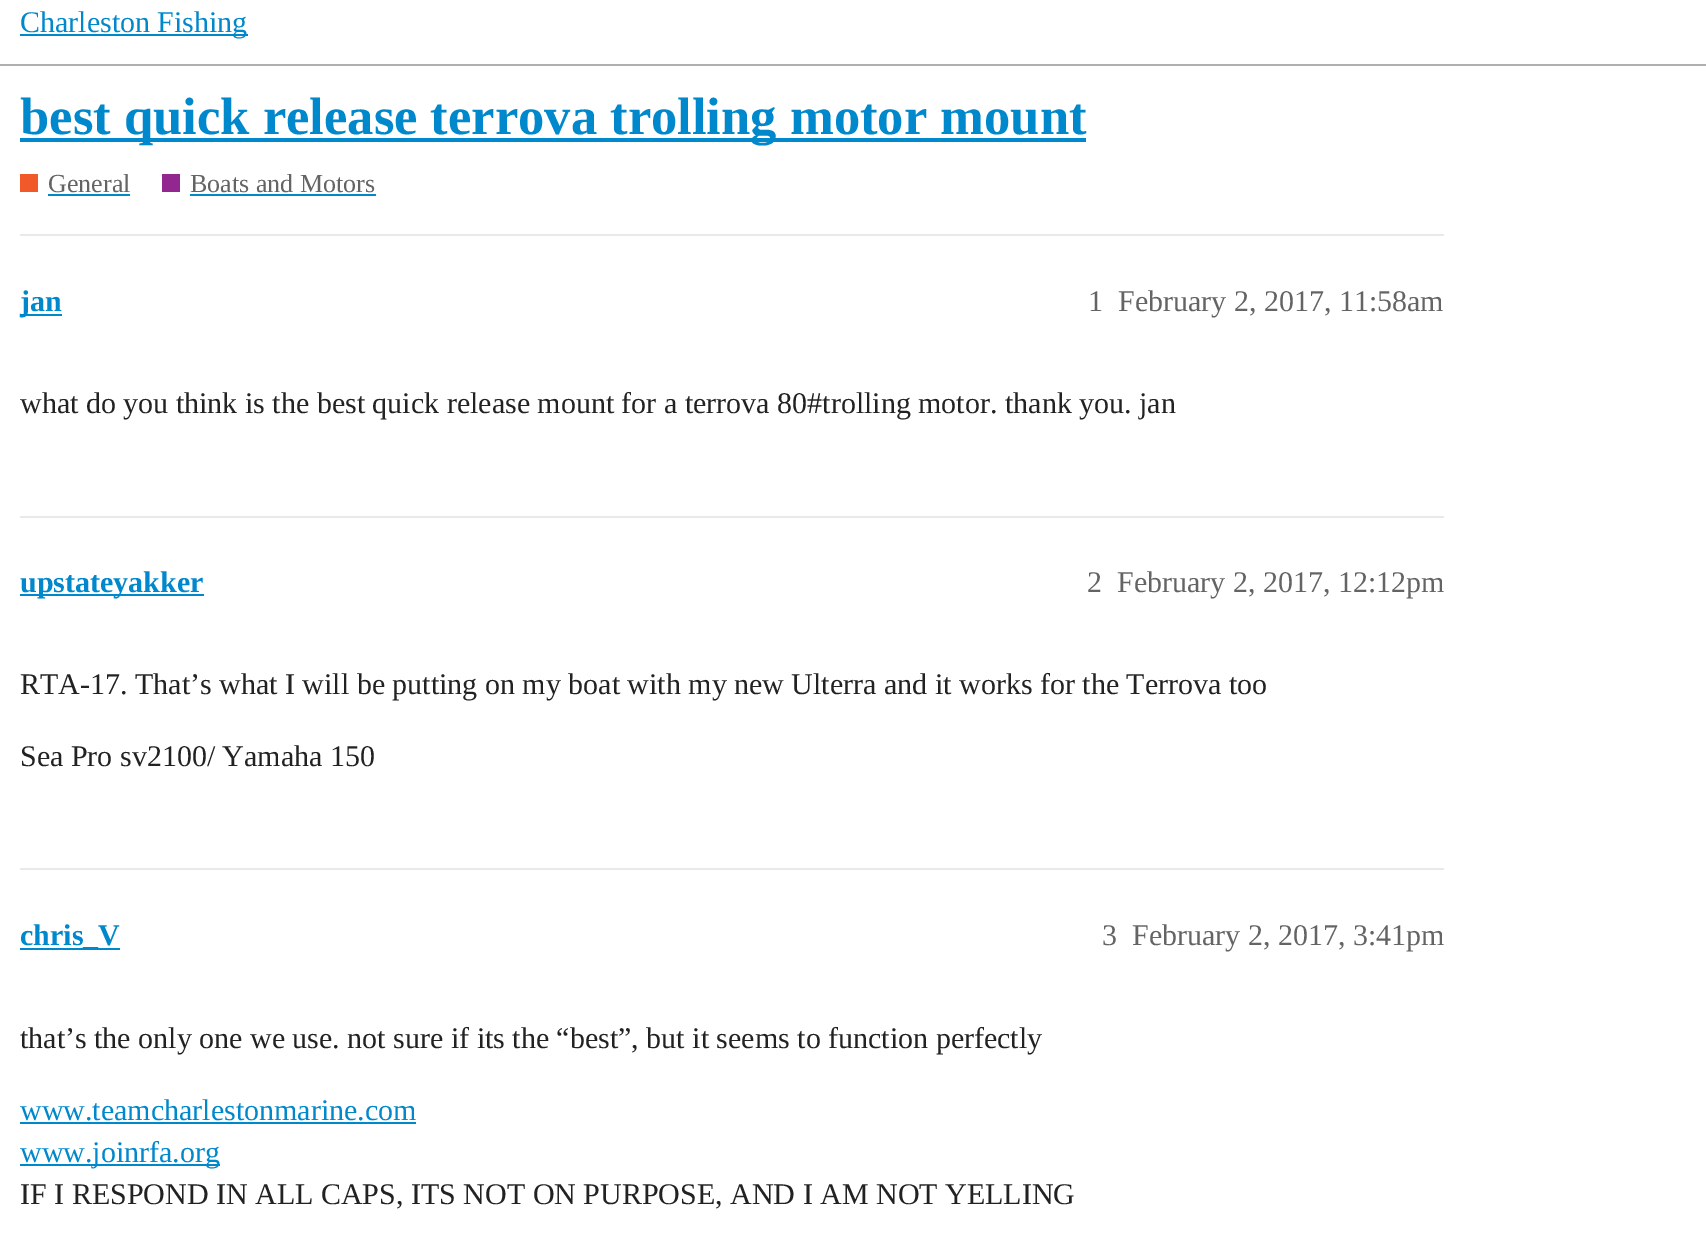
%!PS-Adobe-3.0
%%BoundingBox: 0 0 1706 1257
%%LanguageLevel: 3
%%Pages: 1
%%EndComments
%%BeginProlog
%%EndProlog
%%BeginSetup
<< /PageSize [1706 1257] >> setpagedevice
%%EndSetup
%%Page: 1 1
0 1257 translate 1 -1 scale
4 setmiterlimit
1 setgray
0 0 1706 1257 rectfill
0.686 setgray
0 64 1706 2 rectfill
0 0.533 0.8 setrgbcolor
20 34 228 2 rectfill
20 138 1066 4 rectfill
0.945 0.349 0.165 setrgbcolor
20 174 18 18 rectfill
0 0.533 0.8 setrgbcolor
48 194 82 2 rectfill
0.573 0.153 0.561 setrgbcolor
162 174 18 18 rectfill
0 0.533 0.8 setrgbcolor
190 194 186 2 rectfill
0.914 setgray
20 234 1424 2 rectfill
0 0.533 0.8 setrgbcolor
20 314 42 2 rectfill
0.914 setgray
20 516 1424 2 rectfill
0 0.533 0.8 setrgbcolor
20 594 184 2 rectfill
0.914 setgray
20 868 1424 2 rectfill
0 0.533 0.8 setrgbcolor
20 948 100 2 rectfill
20 1122 396 2 rectfill
20 1164 200 2 rectfill
/LiberationSerif-Regular [30 0 0 -30 0 0] selectfont
20 32 moveto (Charleston Fishing) show
/LiberationSerif-Bold [52.6 0 0 -52.6 0 0] selectfont
20 134 moveto (best quick release terrova trolling motor mount) show
/LiberationSerif-Regular [26 0 0 -26 0 0] selectfont
0.392 setgray
48 192 moveto (General) show
190 192 moveto (Boats and Motors) show
/LiberationSerif-Bold [30 0 0 -30 0 0] selectfont
0 0.533 0.8 setrgbcolor
20 311 moveto (jan) show
/LiberationSerif-Regular [30 0 0 -30 0 0] selectfont
0.392 setgray
1088 311 moveto (1) show
1118 311 moveto (February 2, 2017, 11:58am) show
0.133 setgray
20 413 moveto (what do you think is the best quick release mount for a terrova 80#trolling motor.) show
1005 413 moveto (thank you. jan) show
/LiberationSerif-Bold [30 0 0 -30 0 0] selectfont
0 0.533 0.8 setrgbcolor
20 592 moveto (upstateyakker) show
/LiberationSerif-Regular [30 0 0 -30 0 0] selectfont
0.392 setgray
1087 592 moveto (2) show
1117 592 moveto (February 2, 2017, 12:12pm) show
0.133 setgray
20 694 moveto (RTA-17. That’s what I will be putting on my boat with my new Ulterra and it works for the Terrova too) show
20 766 moveto (Sea Pro sv2100/ Yamaha 150) show
/LiberationSerif-Bold [30 0 0 -30 0 0] selectfont
0 0.533 0.8 setrgbcolor
20 945 moveto (chris_V) show
/LiberationSerif-Regular [30 0 0 -30 0 0] selectfont
0.392 setgray
1102 945 moveto (3) show
1132 945 moveto (February 2, 2017, 3:41pm) show
0.133 setgray
20 1048 moveto (that’s the only one we use. not sure if its the “best”, but it seems to function perfectly) show
0 0.533 0.8 setrgbcolor
20 1120 moveto (www.teamcharlestonmarine.com) show
20 1162 moveto (www.joinrfa.org) show
0.133 setgray
20 1204 moveto (IF I RESPOND IN ALL CAPS, ITS NOT ON PURPOSE, AND I AM NOT YELLING) show
showpage
%%EOF
